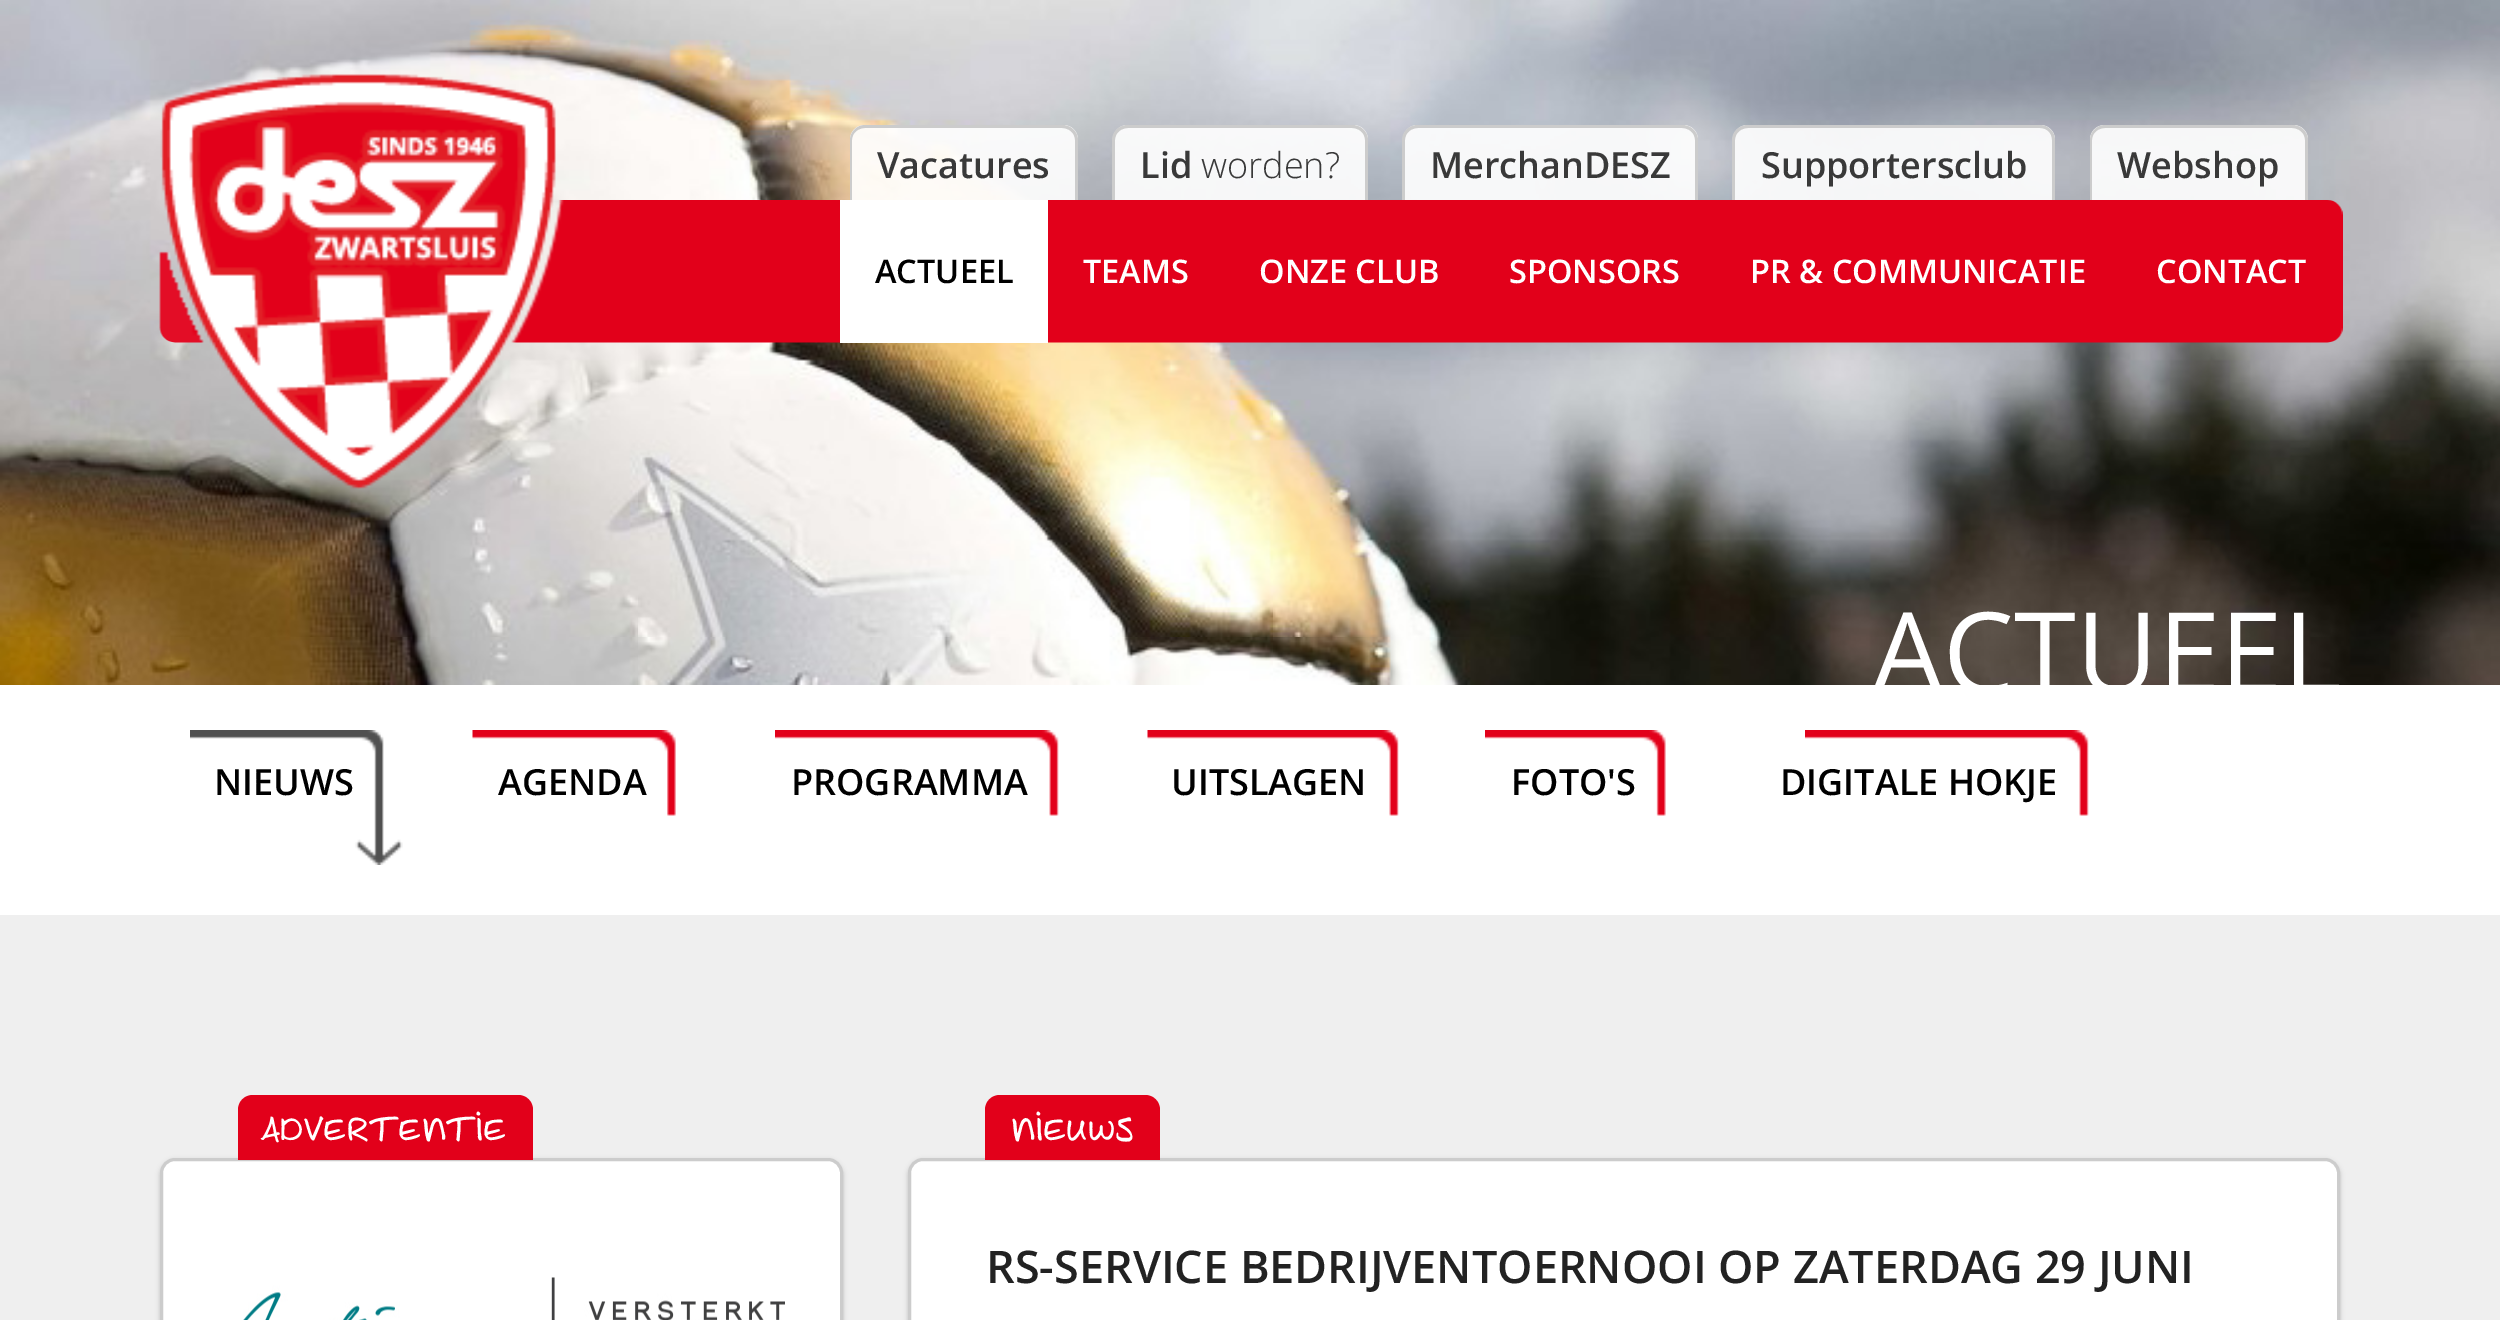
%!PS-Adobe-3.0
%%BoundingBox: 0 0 2500 1320
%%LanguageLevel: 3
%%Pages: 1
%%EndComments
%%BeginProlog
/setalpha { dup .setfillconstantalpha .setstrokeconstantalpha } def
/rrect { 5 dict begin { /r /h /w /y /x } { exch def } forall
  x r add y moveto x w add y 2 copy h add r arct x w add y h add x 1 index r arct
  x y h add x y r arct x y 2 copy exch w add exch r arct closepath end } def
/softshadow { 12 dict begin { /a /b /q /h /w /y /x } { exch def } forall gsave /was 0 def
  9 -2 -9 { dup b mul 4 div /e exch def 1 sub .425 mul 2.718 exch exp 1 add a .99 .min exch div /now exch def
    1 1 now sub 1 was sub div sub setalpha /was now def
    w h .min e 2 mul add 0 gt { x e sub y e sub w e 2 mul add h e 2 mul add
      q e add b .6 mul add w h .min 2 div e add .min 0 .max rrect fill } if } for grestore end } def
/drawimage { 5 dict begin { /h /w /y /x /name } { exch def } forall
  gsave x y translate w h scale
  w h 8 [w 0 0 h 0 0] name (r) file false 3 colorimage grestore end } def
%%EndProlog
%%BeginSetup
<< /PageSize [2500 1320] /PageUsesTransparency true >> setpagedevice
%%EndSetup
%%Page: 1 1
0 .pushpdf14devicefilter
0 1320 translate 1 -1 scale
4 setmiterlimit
0.937 setgray
0 0 2500 1320 rectfill
(images/1.raw) 0 0 2500 685 drawimage
(images/2.raw) 159 200 2184 143 drawimage
0.9 setalpha
1 setgray
newpath 865 125 moveto 1063 125 lineto 1071.5 125 1078 131.5 1078 140 curveto 1078 200 lineto 850 200 lineto 850 140 lineto 850 131.5 856.5 125 865 125 curveto closepath fill
1 setalpha
0.8 setgray
newpath 865 125 moveto 1062 125 lineto 1071 125 1078 132 1078 140 curveto 1078 200 lineto 850 200 lineto 850 140 lineto 850 132 857 125 865 125 curveto closepath 865 128 moveto 1062 128 lineto 1069 128 1075 133 1075 140 curveto 1075 200 lineto 852 200 lineto 852 140 lineto 852 133 858 128 865 128 curveto closepath eofill
0.9 setalpha
1 setgray
newpath 1128 125 moveto 1353 125 lineto 1361.5 125 1368 131.5 1368 140 curveto 1368 200 lineto 1113 200 lineto 1113 140 lineto 1113 131.5 1119.5 125 1128 125 curveto closepath fill
1 setalpha
0.8 setgray
newpath 1128 125 moveto 1352 125 lineto 1361 125 1368 132 1368 140 curveto 1368 200 lineto 1112 200 lineto 1112 140 lineto 1112 132 1119 125 1128 125 curveto closepath 1128 128 moveto 1352 128 lineto 1359 128 1365 133 1365 140 curveto 1365 200 lineto 1115 200 lineto 1115 140 lineto 1115 133 1121 128 1128 128 curveto closepath eofill
0.9 setalpha
1 setgray
newpath 1418 125 moveto 1683 125 lineto 1691.5 125 1698 131.5 1698 140 curveto 1698 200 lineto 1403 200 lineto 1403 140 lineto 1403 131.5 1409.5 125 1418 125 curveto closepath fill
1 setalpha
0.8 setgray
newpath 1418 125 moveto 1682 125 lineto 1691 125 1698 132 1698 140 curveto 1698 200 lineto 1402 200 lineto 1402 140 lineto 1402 132 1409 125 1418 125 curveto closepath 1418 128 moveto 1682 128 lineto 1689 128 1695 133 1695 140 curveto 1695 200 lineto 1405 200 lineto 1405 140 lineto 1405 133 1411 128 1418 128 curveto closepath eofill
0.9 setalpha
1 setgray
newpath 1748 125 moveto 2040 125 lineto 2048.5 125 2055 131.5 2055 140 curveto 2055 200 lineto 1733 200 lineto 1733 140 lineto 1733 131.5 1739.5 125 1748 125 curveto closepath fill
1 setalpha
0.8 setgray
newpath 1748 125 moveto 2040 125 lineto 2048 125 2055 132 2055 140 curveto 2055 200 lineto 1732 200 lineto 1732 140 lineto 1732 132 1739 125 1748 125 curveto closepath 1748 128 moveto 2040 128 lineto 2047 128 2052 133 2052 140 curveto 2052 200 lineto 1735 200 lineto 1735 140 lineto 1735 133 1741 128 1748 128 curveto closepath eofill
0.9 setalpha
1 setgray
newpath 2105 125 moveto 2293 125 lineto 2301.5 125 2308 131.5 2308 140 curveto 2308 200 lineto 2090 200 lineto 2090 140 lineto 2090 131.5 2096.5 125 2105 125 curveto closepath fill
1 setalpha
0.8 setgray
newpath 2105 125 moveto 2292 125 lineto 2301 125 2308 132 2308 140 curveto 2308 200 lineto 2090 200 lineto 2090 140 lineto 2090 132 2097 125 2105 125 curveto closepath 2105 128 moveto 2292 128 lineto 2299 128 2305 133 2305 140 curveto 2305 200 lineto 2092 200 lineto 2092 140 lineto 2092 133 2098 128 2105 128 curveto closepath eofill
(images/3.raw) 160 74 396 415 drawimage
1 setgray
840 200 208 143 rectfill
0 685 2500 230 rectfill
(images/4.raw) 190 730 213 135 drawimage
(images/5.raw) 472 730 204 86 drawimage
(images/6.raw) 775 730 284 86 drawimage
(images/7.raw) 1147 730 252 86 drawimage
(images/8.raw) 1485 730 181 86 drawimage
(images/6.raw) 1805 730 284 86 drawimage
0.196 setgray
160 1160 683 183 15 2.5 0.25 softshadow
1 setgray
161.5 1159.5 680 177 13.5 rrect gsave fill grestore
0.8 setgray
3 setlinewidth
stroke
0.886 0 0.102 setrgbcolor
newpath 253 1095 moveto 518 1095 lineto 526.5 1095 533 1101.5 533 1110 curveto 533 1160 lineto 238 1160 lineto 238 1110 lineto 238 1101.5 244.5 1095 253 1095 curveto closepath fill
(images/9.raw) 243 1277 542 43 drawimage
0.196 setgray
908 1160 1432 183 15 2.5 0.25 softshadow
1 setgray
909.5 1159.5 1429 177 13.5 rrect gsave fill grestore
0.8 setgray
stroke
0.886 0 0.102 setrgbcolor
newpath 1000 1095 moveto 1145 1095 lineto 1153.5 1095 1160 1101.5 1160 1110 curveto 1160 1160 lineto 985 1160 lineto 985 1110 lineto 985 1101.5 991.5 1095 1000 1095 curveto closepath fill
/OpenSans-SemiBold [36 0 0 -36 0 0] selectfont
0.224 setgray
877 178 moveto (Vacatures) show
1140 178 moveto (Lid) show
/OpenSans-Light [36 0 0 -36 0 0] selectfont
1201 178 moveto (worden?) show
/OpenSans-SemiBold [36 0 0 -36 0 0] selectfont
1430 178 moveto (MerchanDESZ) show
1761 178 moveto (Supportersclub) show
2117 178 moveto (Webshop) show
/OpenSans-SemiBold [32.5 0 0 -32.5 0 0] selectfont
0 setgray
875 283 moveto (ACTUEEL) show
1 setgray
1083 283 moveto (TEAMS) show
1259 283 moveto (ONZE CLUB) show
1509 283 moveto (SPONSORS) show
1750 283 moveto (PR & COMMUNICATIE) show
2156 283 moveto (CONTACT) show
/OpenSans-Regular [112.5 0 0 -112.5 0 0] selectfont
1872 693 moveto (ACTUEEL) show
/OpenSans-SemiBold [36 0 0 -36 0 0] selectfont
0 setgray
214 795 moveto (NIEUWS) show
498 795 moveto (AGENDA) show
791 795 moveto (PROGRAMMA) show
1171 795 moveto (UITSLAGEN) show
1511 795 moveto (FOTO'S) show
1780 795 moveto (DIGITALE HOKJE) show
/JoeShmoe-Regular [35 0 0 -35 0 0] selectfont
1 setgray
261 1140 moveto (Advertentie) show
1011 1140 moveto (Nieuws) show
/OpenSans-SemiBold [45 0 0 -45 0 0] selectfont
0.133 setgray
986 1283 moveto (RS-SERVICE BEDRIJVENTOERNOOI OP ZATERDAG 29 JUNI) show
.poppdf14devicefilter showpage
%%EOF
